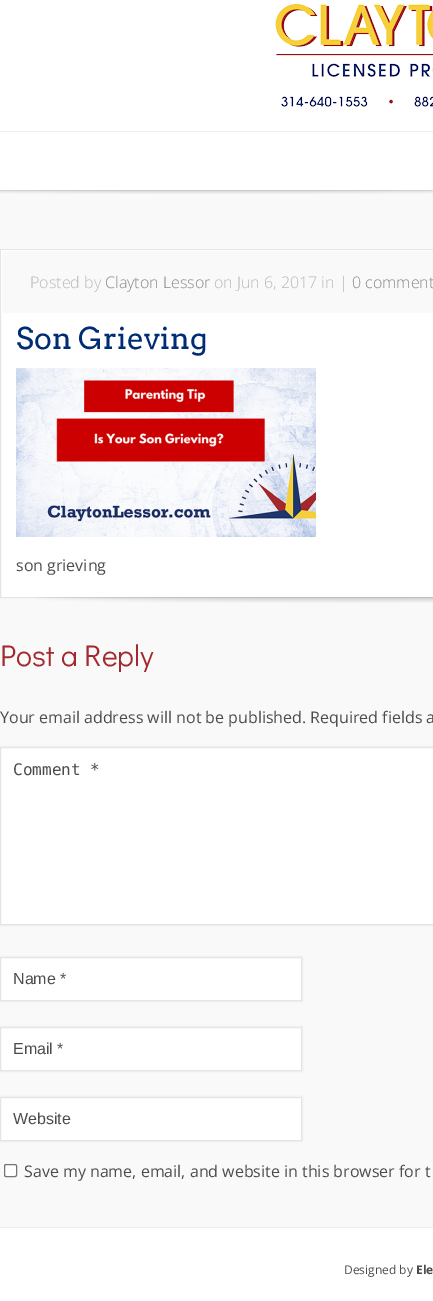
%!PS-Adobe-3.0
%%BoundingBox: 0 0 433 1301
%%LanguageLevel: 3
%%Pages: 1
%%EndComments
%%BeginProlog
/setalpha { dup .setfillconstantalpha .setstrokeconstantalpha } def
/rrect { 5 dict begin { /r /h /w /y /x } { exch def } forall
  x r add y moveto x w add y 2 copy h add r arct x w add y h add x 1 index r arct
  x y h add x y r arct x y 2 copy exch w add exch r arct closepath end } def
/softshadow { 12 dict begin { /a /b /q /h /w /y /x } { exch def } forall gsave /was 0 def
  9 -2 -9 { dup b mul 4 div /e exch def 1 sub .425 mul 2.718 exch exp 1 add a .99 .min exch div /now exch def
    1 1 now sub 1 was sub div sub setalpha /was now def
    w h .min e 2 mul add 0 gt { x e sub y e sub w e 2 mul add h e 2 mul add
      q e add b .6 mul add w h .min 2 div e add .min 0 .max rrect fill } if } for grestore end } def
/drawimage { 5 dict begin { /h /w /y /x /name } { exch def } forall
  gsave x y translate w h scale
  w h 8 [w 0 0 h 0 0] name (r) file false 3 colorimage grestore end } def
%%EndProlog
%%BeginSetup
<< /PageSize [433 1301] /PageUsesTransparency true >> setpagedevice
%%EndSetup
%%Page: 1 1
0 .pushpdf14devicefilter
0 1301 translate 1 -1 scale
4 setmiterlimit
1 setgray
0 0 433 1301 rectfill
(images/1.raw) 275 3 158 104 drawimage
0.933 setgray
0 131 433 1 rectfill
0 190 433 1 rectfill
0.976 setgray
0 191 433 1036 rectfill
(images/2.raw) 0 190 433 4 drawimage
0.933 setgray
0 1227 433 1 rectfill
1 setgray
1 313 432 284 rectfill
0.898 setgray
0.5 249.5 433 348 rectstroke
1 setgray
1 250 432 1 rectfill
1 250 1 63 rectfill
(images/3.raw) 16 368 300 169 drawimage
(images/4.raw) 35 597 398 6 drawimage
0 setgray
0 747 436 178 0 1 0.1 softshadow
1 setgray
newpath 0.5 747.5 moveto 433.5 747.5 lineto 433.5 924.5 lineto 0.5 924.5 lineto closepath gsave fill grestore
0.898 setgray
stroke
0 setgray
0 957 302 44 0 1 0.1 softshadow
1 setgray
newpath 0.5 957.5 moveto 301.5 957.5 lineto 301.5 1000.5 lineto 0.5 1000.5 lineto closepath gsave fill grestore
0.898 setgray
stroke
0 setgray
0 1027 302 44 0 1 0.1 softshadow
1 setgray
newpath 0.5 1027.5 moveto 301.5 1027.5 lineto 301.5 1070.5 lineto 0.5 1070.5 lineto closepath gsave fill grestore
0.898 setgray
stroke
0 setgray
0 1097 302 44 0 1 0.1 softshadow
1 setgray
newpath 0.5 1097.5 moveto 301.5 1097.5 lineto 301.5 1140.5 lineto 0.5 1140.5 lineto closepath gsave fill grestore
0.898 setgray
stroke
1 setgray
4.5 1164.5 12 12 1.5 rrect gsave fill grestore
0.463 setgray
stroke
/OpenSans-Light [16 0 0 -16 0 0] selectfont
0.722 setgray
30 288 moveto (Posted by) show
0.533 setgray
105 288 moveto (Clayton Lessor) show
0.722 setgray
214 288 moveto (on Jun 6, 2017 in |) show
0.533 setgray
352 288 moveto (0 comment) show
/Arvo-Regular [30 0 0 -30 0 0] selectfont
0 0.173 0.451 setrgbcolor
16 349 moveto (Son Grieving) show
/OpenSans-Regular [16 0 0 -16 0 0] selectfont
0.298 setgray
16 571 moveto (son grieving) show
/DidactGothic-Regular [30 0 0 -30 0 0] selectfont
0.635 0.161 0.18 setrgbcolor
0 666 moveto (Post a Reply) show
/OpenSans-Regular [16 0 0 -16 0 0] selectfont
0.298 setgray
0 723 moveto (Your email address will not be published. Required fields a) show
/DejaVuSansMono-Regular [16 0 0 -16 0 0] selectfont
13 775 moveto (Comment *) show
/LiberationSans-Regular [16 0 0 -16 0 0] selectfont
13 984 moveto (Name *) show
13 1054 moveto (Email *) show
13 1124 moveto (Website) show
/OpenSans-Regular [16 0 0 -16 0 0] selectfont
24 1177 moveto (Save my name, email, and website in this browser for t) show
/OpenSans-Regular [12 0 0 -12 0 0] selectfont
344 1274 moveto (Designed by) show
/OpenSans-Bold [12 0 0 -12 0 0] selectfont
416 1274 moveto (Ele) show
.poppdf14devicefilter showpage
%%EOF
